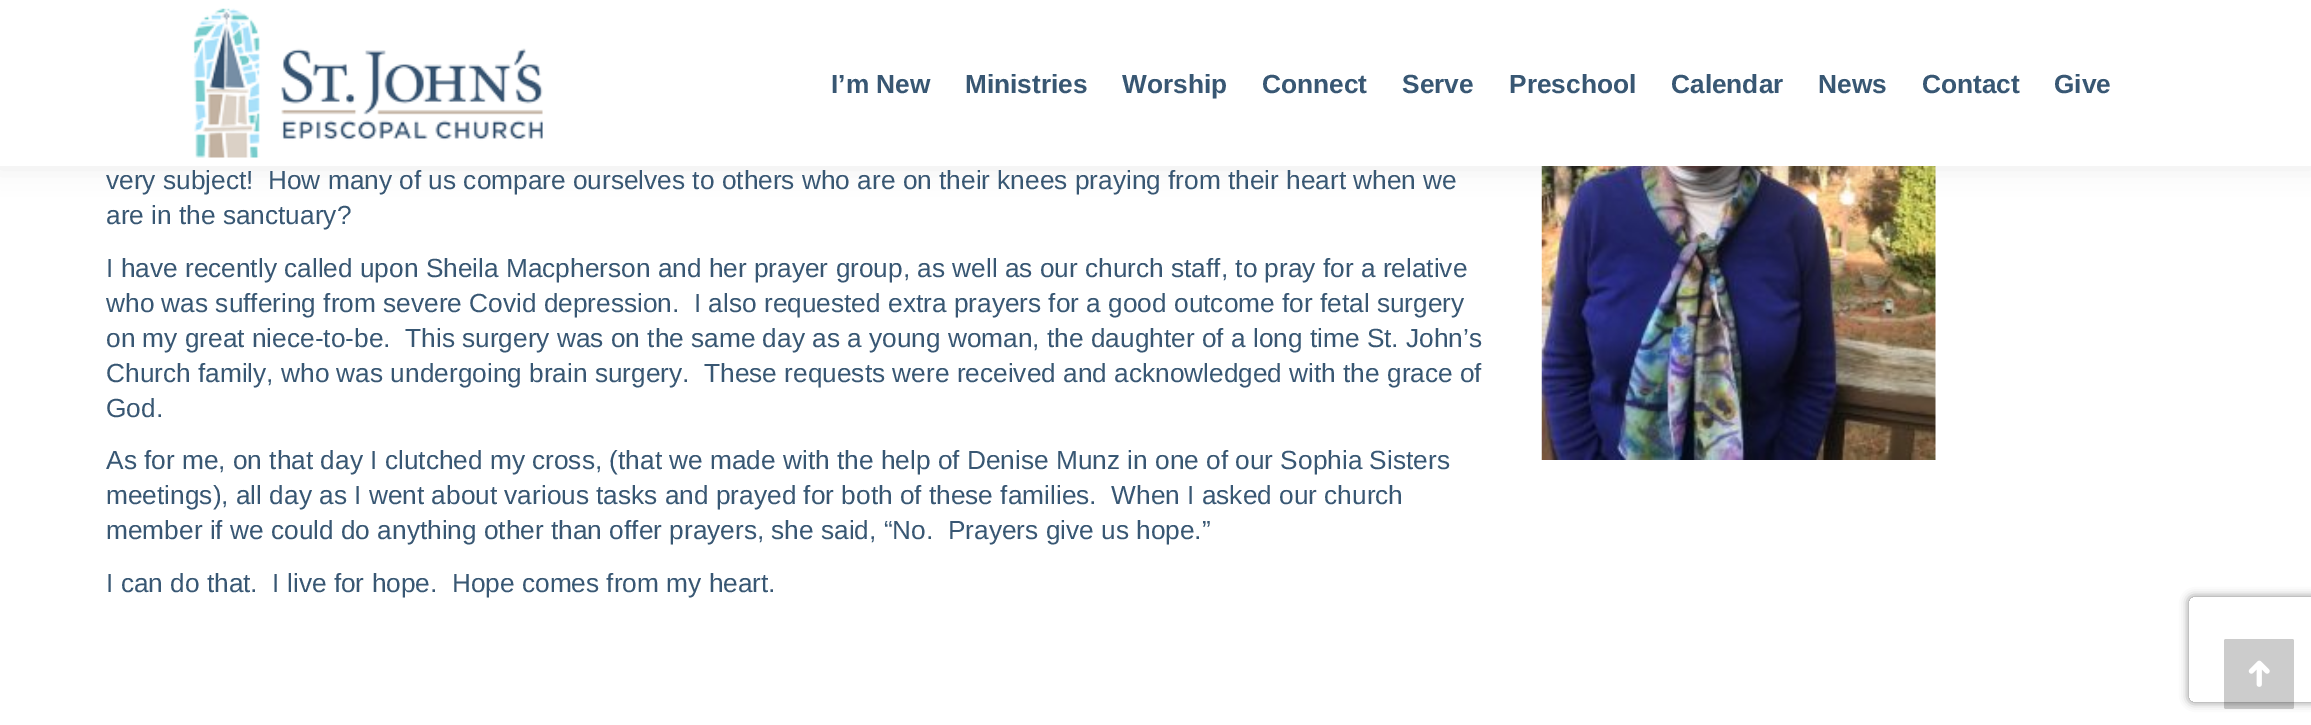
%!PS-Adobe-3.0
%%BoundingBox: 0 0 2311 725
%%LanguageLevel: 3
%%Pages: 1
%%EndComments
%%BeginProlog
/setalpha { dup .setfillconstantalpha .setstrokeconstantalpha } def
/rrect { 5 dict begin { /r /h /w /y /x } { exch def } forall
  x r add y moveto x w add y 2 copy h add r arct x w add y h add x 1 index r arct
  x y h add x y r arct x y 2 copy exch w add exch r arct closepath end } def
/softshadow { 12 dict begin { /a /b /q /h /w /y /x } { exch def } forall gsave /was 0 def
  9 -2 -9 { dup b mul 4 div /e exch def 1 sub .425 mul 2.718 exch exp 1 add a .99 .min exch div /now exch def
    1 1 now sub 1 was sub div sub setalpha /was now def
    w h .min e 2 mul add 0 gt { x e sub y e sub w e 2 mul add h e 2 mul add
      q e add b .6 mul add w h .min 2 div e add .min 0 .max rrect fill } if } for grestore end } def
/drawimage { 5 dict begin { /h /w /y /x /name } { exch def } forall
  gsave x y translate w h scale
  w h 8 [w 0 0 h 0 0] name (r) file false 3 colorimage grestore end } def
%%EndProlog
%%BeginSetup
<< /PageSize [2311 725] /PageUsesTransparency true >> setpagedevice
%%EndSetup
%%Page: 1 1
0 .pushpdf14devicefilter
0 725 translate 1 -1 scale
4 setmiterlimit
1 setgray
0 0 2311 725 rectfill
(images/2.raw) 1541 166 395 294 drawimage
0 setgray
-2 -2 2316 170 0 13 0.07 softshadow
1 setgray
0 0 2311 166 rectfill
(images/1.raw) 193 8 350 150 drawimage
gsave
newpath 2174 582 moveto 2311 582 lineto 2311 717 lineto 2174 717 lineto closepath 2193 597 moveto 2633 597 lineto 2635 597 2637 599 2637 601 curveto 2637 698 lineto 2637 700 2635 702 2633 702 curveto 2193 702 lineto 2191 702 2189 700 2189 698 curveto 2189 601 lineto 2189 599 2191 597 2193 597 curveto closepath eoclip newpath
0.502 setgray
2189 597 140 105 4 4.5 1 softshadow
grestore
0.2 setalpha
0 setgray
2224 639 70 70 2 rrect fill
1 setalpha
(images/3.raw) 2248 660 22 27 drawimage
/LiberationSans-Bold [26.25 0 0 -26.25 0 0] selectfont
0.22 0.341 0.451 setrgbcolor
831 93 moveto (I’m New) show
965 93 moveto (Ministries) show
1122 93 moveto (Worship) show
1262 93 moveto (Connect) show
1402 93 moveto (Serve) show
1509 93 moveto (Preschool) show
1671 93 moveto (Calendar) show
1818 93 moveto (News) show
1922 93 moveto (Contact) show
2054 93 moveto (Give) show
/LiberationSans-Regular [26.25 0 0 -26.25 0 0] selectfont
106 189 moveto (very subject!  How many of us compare ourselves to others who are on their knees praying from their heart when we) show
106 224 moveto (are in the sanctuary?) show
106 277 moveto (I have recently called upon Sheila Macpherson and her prayer group, as well as our church staff, to pray for a relative) show
106 312 moveto (who was suffering from severe Covid depression.  I also requested extra prayers for a good outcome for fetal surgery) show
106 347 moveto (on my great niece-to-be.  This surgery was on the same day as a young woman, the daughter of a long time St. John’s) show
106 382 moveto (Church family, who was undergoing brain surgery.  These requests were received and acknowledged with the grace of) show
106 417 moveto (God.) show
106 469 moveto (As for me, on that day I clutched my cross, \(that we made with the help of Denise Munz in one of our Sophia Sisters) show
106 504 moveto (meetings\), all day as I went about various tasks and prayed for both of these families.  When I asked our church) show
106 539 moveto (member if we could do anything other than offer prayers, she said, “No.  Prayers give us hope.”) show
106 592 moveto (I can do that.  I live for hope.  Hope comes from my heart.) show
.poppdf14devicefilter showpage
%%EOF
